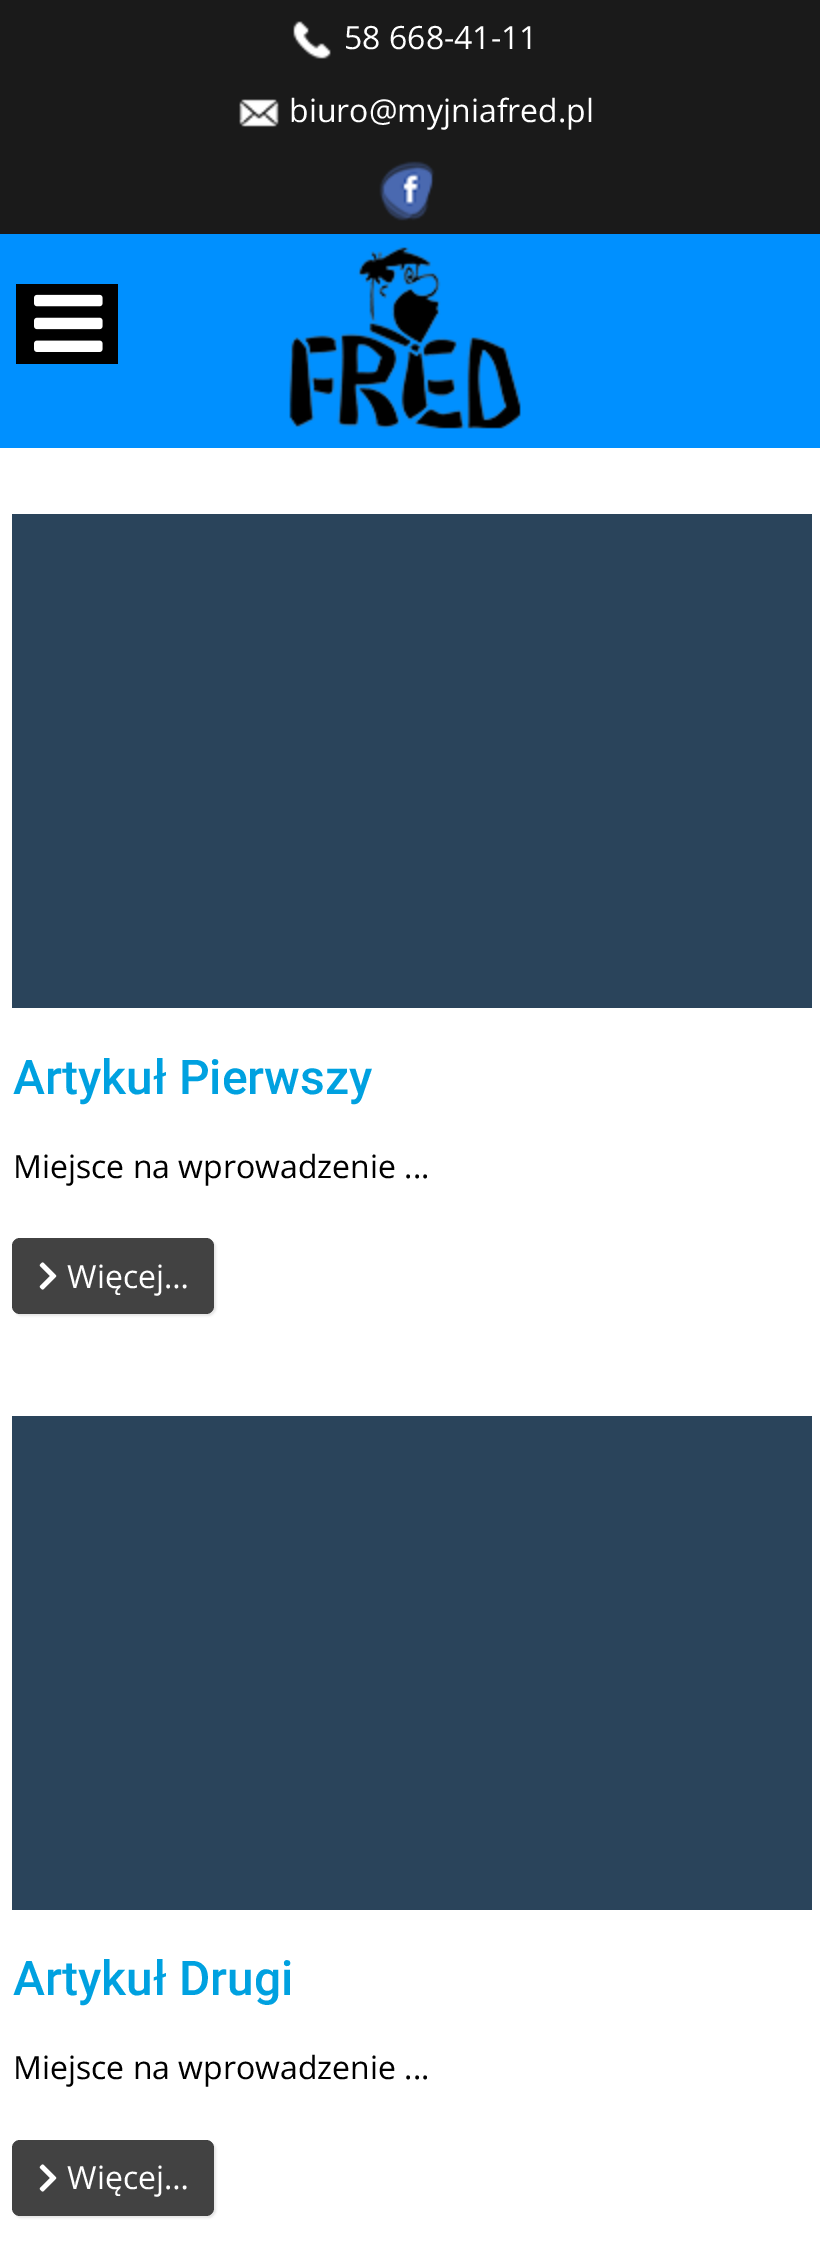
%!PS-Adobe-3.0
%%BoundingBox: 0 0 820 2242
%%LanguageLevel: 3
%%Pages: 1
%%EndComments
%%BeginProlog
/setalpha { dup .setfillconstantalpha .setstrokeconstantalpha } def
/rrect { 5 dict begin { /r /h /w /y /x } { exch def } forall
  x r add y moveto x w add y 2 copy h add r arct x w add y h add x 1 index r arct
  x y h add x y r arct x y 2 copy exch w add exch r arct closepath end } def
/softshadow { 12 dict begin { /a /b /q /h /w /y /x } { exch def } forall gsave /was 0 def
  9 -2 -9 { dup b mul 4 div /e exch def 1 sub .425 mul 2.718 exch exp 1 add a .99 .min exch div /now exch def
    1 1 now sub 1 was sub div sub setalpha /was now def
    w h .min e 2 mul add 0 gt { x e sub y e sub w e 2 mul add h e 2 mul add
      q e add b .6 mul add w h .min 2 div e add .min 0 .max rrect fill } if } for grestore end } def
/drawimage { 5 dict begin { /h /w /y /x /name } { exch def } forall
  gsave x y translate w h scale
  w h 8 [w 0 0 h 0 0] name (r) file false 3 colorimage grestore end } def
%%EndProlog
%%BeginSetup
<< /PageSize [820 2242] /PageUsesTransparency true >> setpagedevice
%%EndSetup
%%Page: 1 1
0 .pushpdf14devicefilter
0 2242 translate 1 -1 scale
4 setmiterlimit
1 setgray
0 0 820 2242 rectfill
0.102 setgray
0 0 820 234 rectfill
(images/1.raw) 293 21 38 38 drawimage
(images/2.raw) 239 99 40 28 drawimage
(images/3.raw) 379 161 56 60 drawimage
0 0.565 1 setrgbcolor
0 234 820 214 rectfill
(images/4.raw) 289 247 232 182 drawimage
0 setgray
16 284 102 80 rectfill
(images/5.raw) 34 294 69 58 drawimage
0.165 0.267 0.357 setrgbcolor
12 514 800 494 rectfill
0 setgray
14 1240 202 76 8 1 0.1 softshadow
0.259 setgray
12 1238 202 76 8 rrect fill
(images/6.raw) 39 1262 18 28 drawimage
0.165 0.267 0.357 setrgbcolor
12 1416 800 494 rectfill
0 setgray
14 2142 202 76 8 1 0.1 softshadow
0.259 setgray
12 2140 202 76 8 rrect fill
(images/6.raw) 39 2164 18 28 drawimage
/OpenSans-Regular [32 0 0 -32 0 0] selectfont
1 setgray
344 49 moveto (58 668-41-11) show
289 122 moveto (biuro@myjniafred.pl) show
/Roboto-Medium [48 0 0 -48 0 0] selectfont
0 0.631 0.878 setrgbcolor
13 1094 moveto (Artykuł Pierwszy) show
/OpenSans-Regular [32 0 0 -32 0 0] selectfont
0 setgray
13 1178 moveto (Miejsce na wprowadzenie ...) show
1 setgray
67 1288 moveto (Więcej…) show
/Roboto-Medium [48 0 0 -48 0 0] selectfont
0 0.631 0.878 setrgbcolor
13 1995 moveto (Artykuł Drugi) show
/OpenSans-Regular [32 0 0 -32 0 0] selectfont
0 setgray
13 2079 moveto (Miejsce na wprowadzenie ...) show
1 setgray
67 2189 moveto (Więcej…) show
.poppdf14devicefilter showpage
%%EOF
